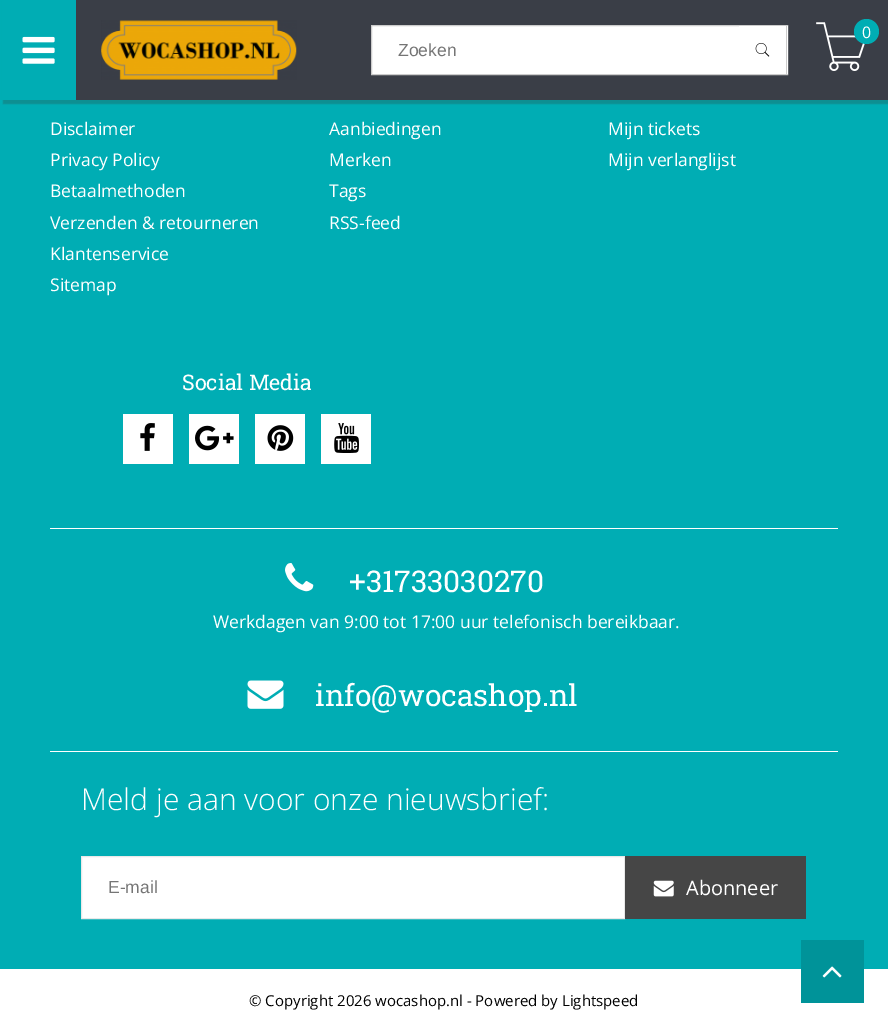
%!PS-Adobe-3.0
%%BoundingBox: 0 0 888 1021
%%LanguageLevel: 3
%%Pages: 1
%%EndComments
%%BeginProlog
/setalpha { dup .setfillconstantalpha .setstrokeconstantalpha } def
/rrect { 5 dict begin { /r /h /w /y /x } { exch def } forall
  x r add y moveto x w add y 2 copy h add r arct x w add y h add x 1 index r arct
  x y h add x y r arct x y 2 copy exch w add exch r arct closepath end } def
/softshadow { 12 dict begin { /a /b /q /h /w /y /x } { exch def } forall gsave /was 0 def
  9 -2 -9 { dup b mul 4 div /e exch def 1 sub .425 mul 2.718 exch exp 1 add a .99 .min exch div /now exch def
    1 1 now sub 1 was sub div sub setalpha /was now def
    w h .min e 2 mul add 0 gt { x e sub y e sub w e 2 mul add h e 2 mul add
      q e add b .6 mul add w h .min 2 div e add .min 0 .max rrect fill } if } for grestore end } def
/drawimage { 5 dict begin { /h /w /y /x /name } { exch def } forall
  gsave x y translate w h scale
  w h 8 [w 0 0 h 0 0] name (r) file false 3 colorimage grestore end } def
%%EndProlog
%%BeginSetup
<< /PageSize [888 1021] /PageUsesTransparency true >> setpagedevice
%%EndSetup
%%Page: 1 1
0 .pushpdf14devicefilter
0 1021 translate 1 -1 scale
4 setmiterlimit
0 0.678 0.706 setrgbcolor
0 0 888 1021 rectfill
0.196 setgray
3 1 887 103 0 0.5 0.25 softshadow
0.227 0.243 0.278 setrgbcolor
76 0 812 100 rectfill
0 0.678 0.706 setrgbcolor
2 0 74 100 rectfill
(images/1.raw) 22 36 33 28 drawimage
(images/2.raw) 101 20 196 60 drawimage
(images/3.raw) 816 22 49 49 drawimage
newpath 866.5 31.5 12.5 0 360 arc closepath fill
1 setgray
372 26 367 48 rectfill
0.8 setgray
371.5 25.5 416 49 rectstroke
1 setgray
739 26 49 48 rectfill
0.8 setgray
786 25 1 50 rectfill
(images/4.raw) 755 43 15 14 drawimage
1 setgray
123 414 50 50 rectfill
(images/5.raw) 140 423 15 28 drawimage
189 414 50 50 rectfill
(images/6.raw) 195 425 39 26 drawimage
255 414 50 50 rectfill
(images/7.raw) 267 425 27 26 drawimage
321 414 50 50 rectfill
(images/8.raw) 334 423 25 30 drawimage
50 528 788 1 rectfill
(images/9.raw) 285 563 29 29 drawimage
(images/10.raw) 247 680 37 29 drawimage
50 751 788 1 rectfill
newpath 81.5 856.5 moveto 624.5 856.5 lineto 624.5 918.5 lineto 81.5 918.5 lineto closepath gsave fill grestore
0.914 setgray
stroke
0.275 setgray
625 856 181 63 rectfill
(images/11.raw) 653 880 21 17 drawimage
1 setgray
0 969 888 52 rectfill
0 0.576 0.6 setrgbcolor
801 940 63 63 rectfill
(images/12.raw) 822 966 20 12 drawimage
/OpenSans-Regular [16 0 0 -16 0 0] selectfont
1 setgray
862 38 moveto (0) show
/LiberationSans-Regular [17.5 0 0 -17.5 0 0] selectfont
0.459 setgray
398 56 moveto (Zoeken) show
/OpenSans-Regular [17.5 0 0 -17.5 0 0] selectfont
1 setgray
50 135 moveto (Disclaimer) show
50 166 moveto (Privacy Policy) show
50 197 moveto (Betaalmethoden) show
50 229 moveto (Verzenden & retourneren) show
50 260 moveto (Klantenservice) show
50 291 moveto (Sitemap) show
329 135 moveto (Aanbiedingen) show
329 166 moveto (Merken) show
329 197 moveto (Tags) show
329 229 moveto (RSS-feed) show
608 135 moveto (Mijn tickets) show
608 166 moveto (Mijn verlanglijst) show
/RobotoSlab-Regular [21.5 0 0 -21.5 0 0] selectfont
182 390 moveto (Social Media) show
/RobotoSlab-Regular [30 0 0 -30 0 0] selectfont
349 592 moveto (+31733030270) show
/OpenSans-Regular [17.5 0 0 -17.5 0 0] selectfont
213 628 moveto (Werkdagen van 9:00 tot 17:00 uur telefonisch bereikbaar.) show
/RobotoSlab-Regular [30 0 0 -30 0 0] selectfont
315 706 moveto (info@wocashop.nl) show
/OpenSans-Light [30 0 0 -30 0 0] selectfont
81 810 moveto (Meld je aan voor onze nieuwsbrief:) show
/LiberationSans-Regular [17.5 0 0 -17.5 0 0] selectfont
0.459 setgray
108 893 moveto (E-mail) show
/OpenSans-Regular [20 0 0 -20 0 0] selectfont
1 setgray
686 895 moveto (Abonneer) show
/OpenSans-Regular [15 0 0 -15 0 0] selectfont
0 setgray
249 1006 moveto (© Copyright 2026 wocashop.nl - Powered by Lightspeed) show
.poppdf14devicefilter showpage
%%EOF
